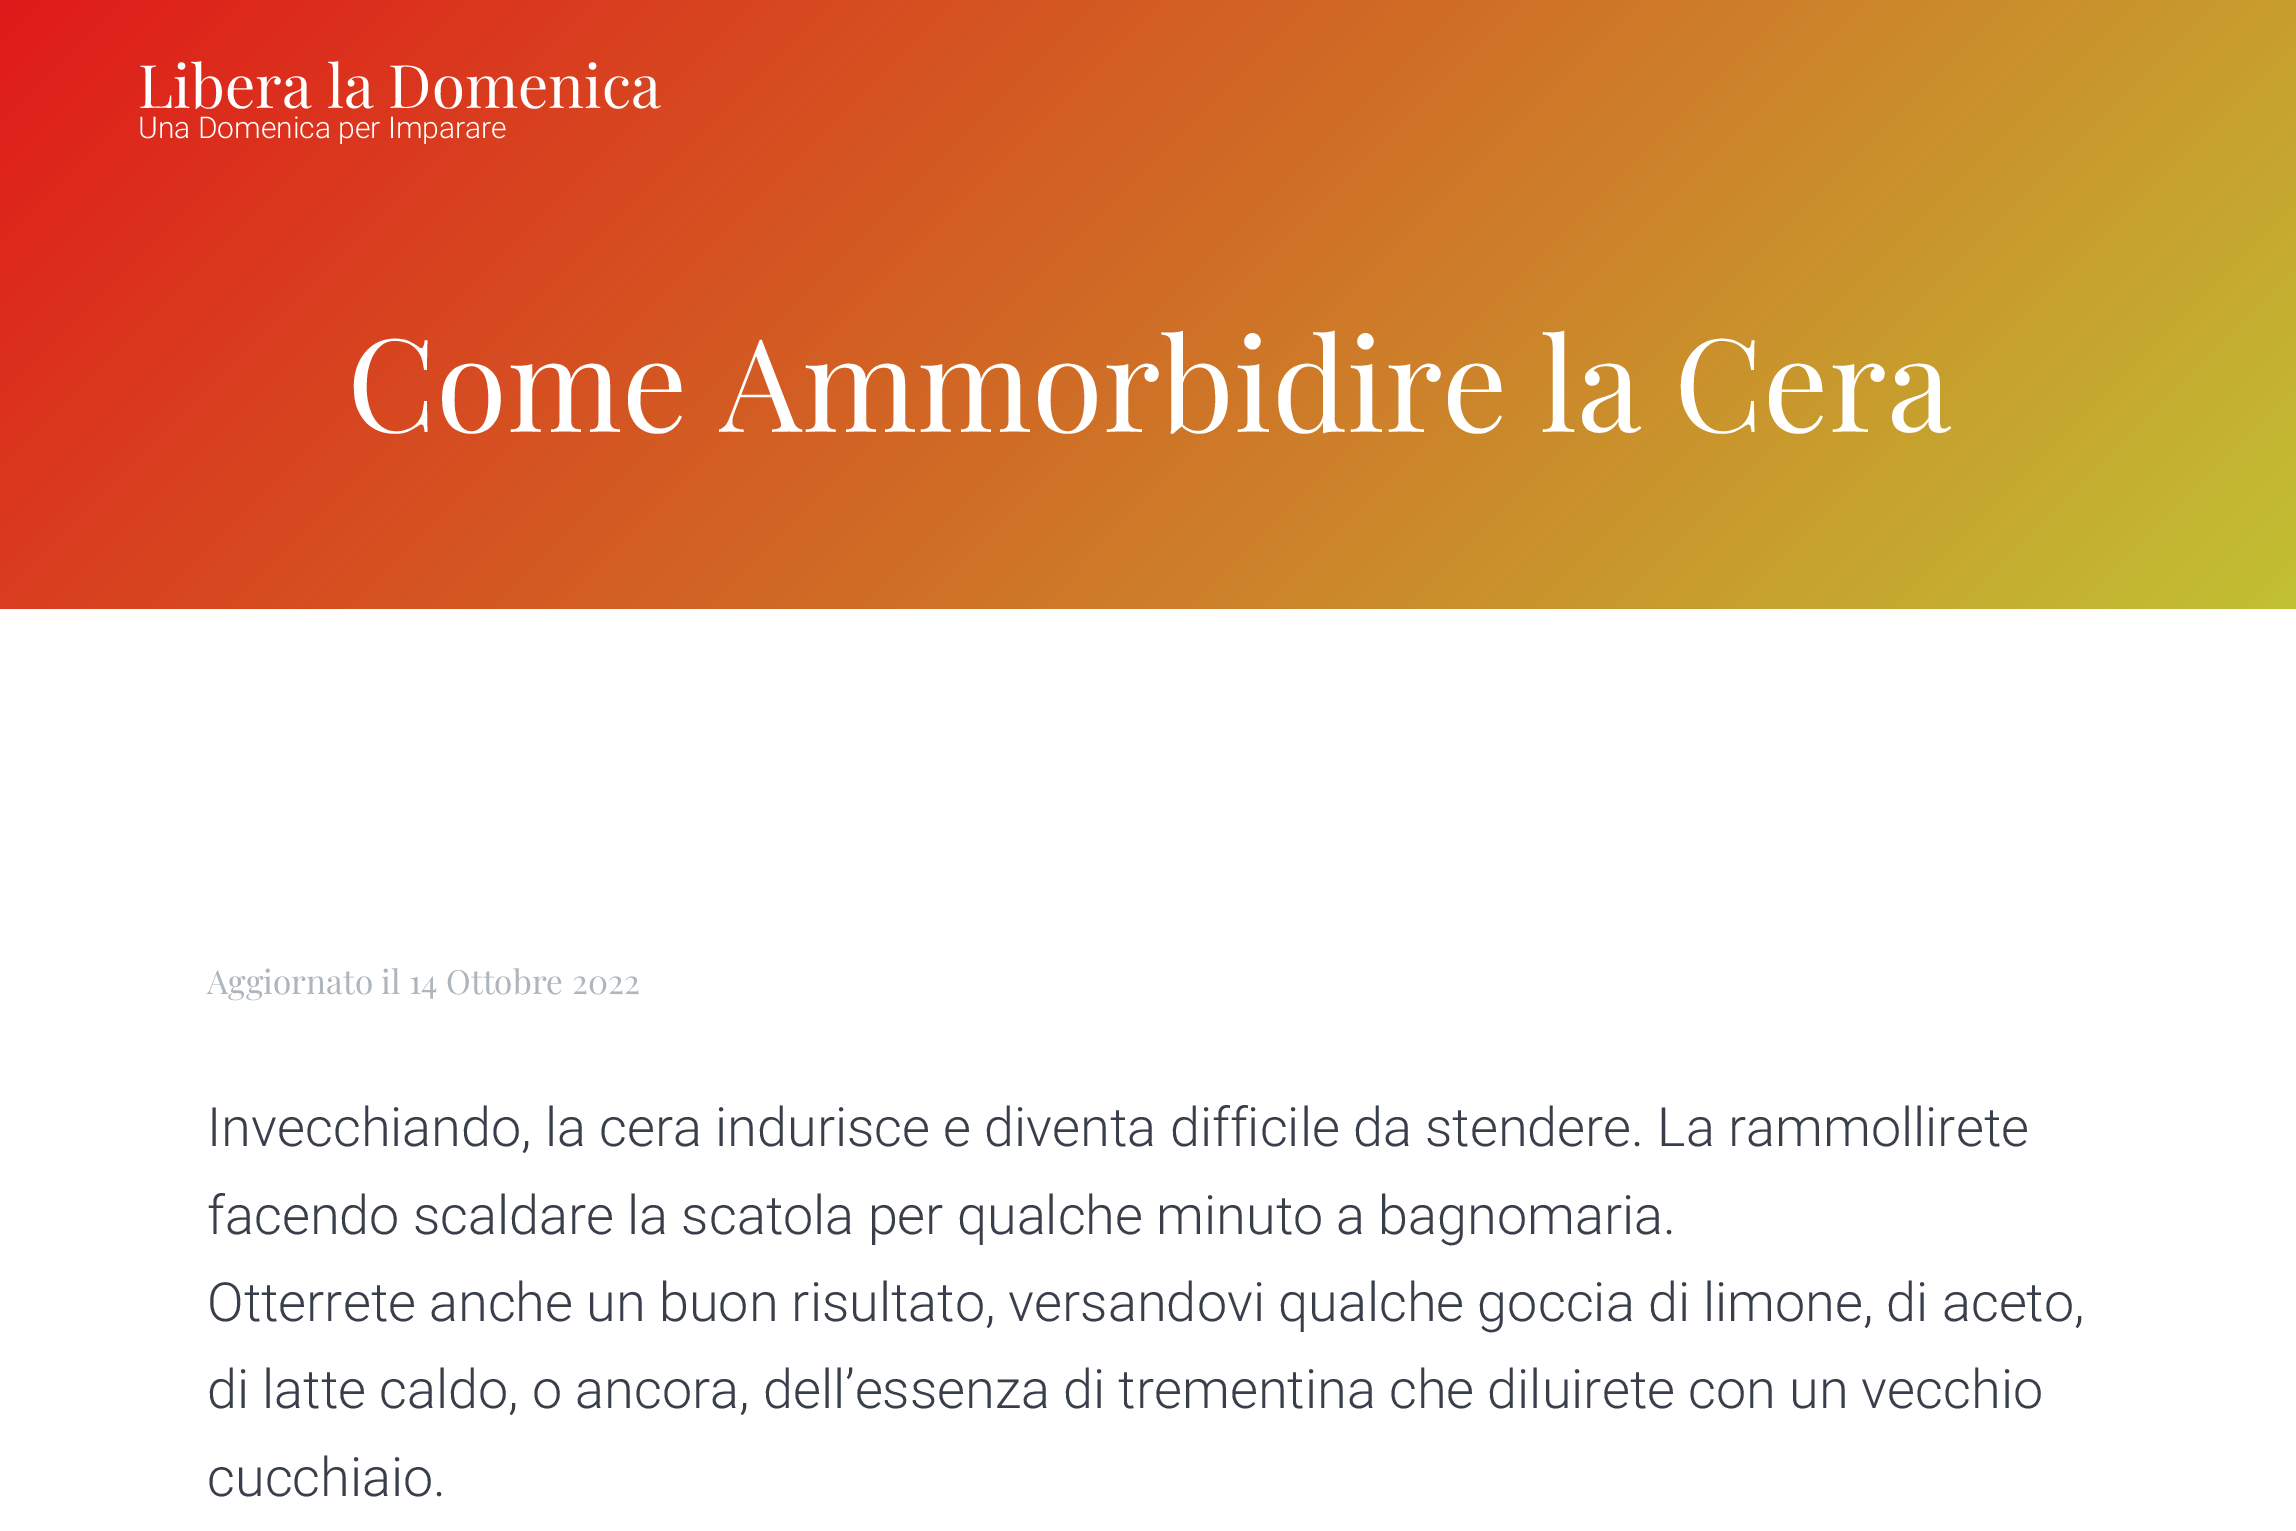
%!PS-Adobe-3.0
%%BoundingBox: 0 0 2296 1531
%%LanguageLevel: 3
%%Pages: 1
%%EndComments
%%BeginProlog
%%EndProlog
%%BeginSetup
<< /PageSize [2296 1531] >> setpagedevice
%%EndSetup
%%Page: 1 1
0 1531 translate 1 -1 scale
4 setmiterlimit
1 setgray
0 0 2296 1531 rectfill
gsave newpath 0 0 moveto 2296 0 lineto 2296 609 lineto 0 609 lineto closepath clip newpath
<< /ShadingType 2 /ColorSpace /DeviceRGB /Coords [422 -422 1876 1031] /Extend [true true] /Function << /FunctionType 2 /Domain [0 1] /C0 [0.878 0.102 0.102] /C1 [0.757 0.757 0.2] /N 1 >> >> shfill grestore
/PlayfairDisplay-Regular [60 0 0 -60 0 0] selectfont
138 108 moveto (Libera la Domenica) show
/Roboto-Light [30 0 0 -30 0 0] selectfont
138 138 moveto (Una Domenica per Imparare) show
/PlayfairDisplay-Regular [129.6 0 0 -129.6 0 0] selectfont
347 432 moveto (Come Ammorbidire la Cera) show
/PlayfairDisplay-Regular [33.4 0 0 -33.4 0 0] selectfont
0.678 0.71 0.741 setrgbcolor
207 994 moveto (Aggiornato il 14 Ottobre 2022) show
/Roboto-Light [54 0 0 -54 0 0] selectfont
0.224 0.243 0.294 setrgbcolor
207 1146 moveto (Invecchiando, la cera indurisce e diventa difficile da stendere. La rammollirete) show
207 1234 moveto (facendo scaldare la scatola per qualche minuto a bagnomaria.) show
207 1321 moveto (Otterrete anche un buon risultato, versandovi qualche goccia di limone, di aceto,) show
207 1408 moveto (di latte caldo, o ancora, dell’essenza di trementina che diluirete con un vecchio) show
207 1496 moveto (cucchiaio.) show
showpage
%%EOF
